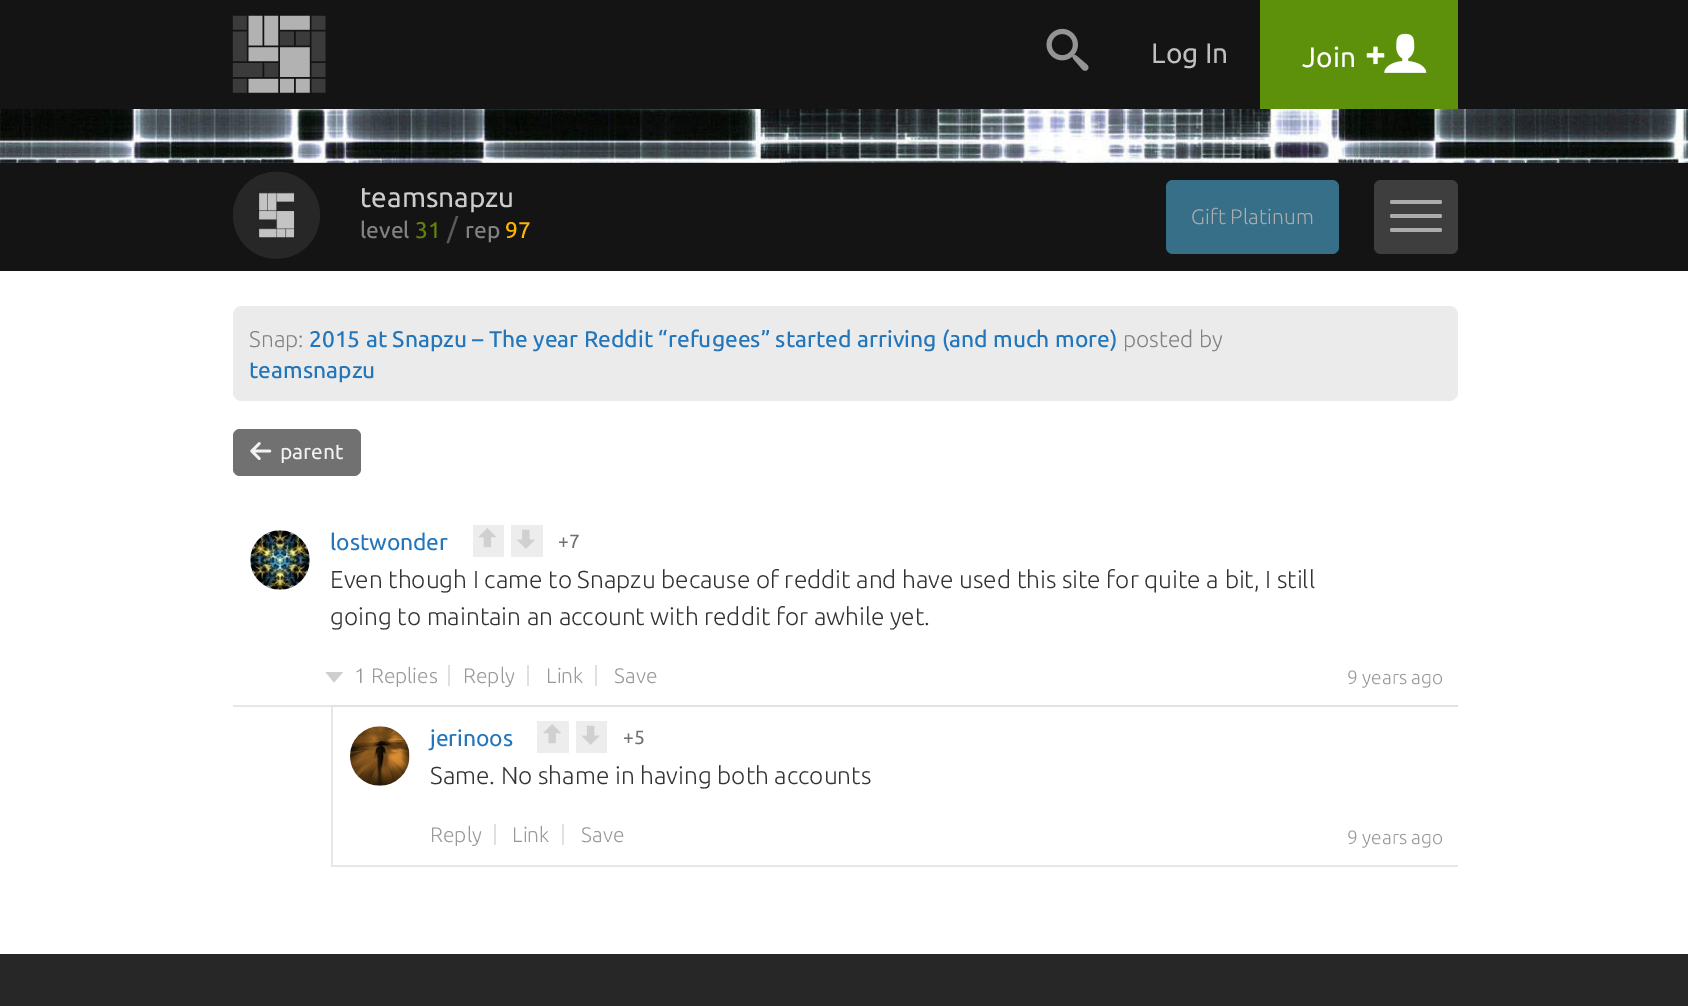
%!PS-Adobe-3.0
%%BoundingBox: 0 0 1688 1006
%%LanguageLevel: 3
%%Pages: 1
%%EndComments
%%BeginProlog
/rrect { 5 dict begin { /r /h /w /y /x } { exch def } forall
  x r add y moveto x w add y 2 copy h add r arct x w add y h add x 1 index r arct
  x y h add x y r arct x y 2 copy exch w add exch r arct closepath end } def
/drawimage { 5 dict begin { /h /w /y /x /name } { exch def } forall
  gsave x y translate w h scale
  w h 8 [w 0 0 h 0 0] name (r) file false 3 colorimage grestore end } def
%%EndProlog
%%BeginSetup
<< /PageSize [1688 1006] >> setpagedevice
%%EndSetup
%%Page: 1 1
0 1006 translate 1 -1 scale
4 setmiterlimit
0.153 setgray
0 0 1688 1006 rectfill
0.078 setgray
0 0 1688 109 rectfill
(images/1.raw) 232 15 94 78 drawimage
(images/2.raw) 1046 28 43 43 drawimage
0.365 0.569 0.047 setrgbcolor
1260 0 198 109 rectfill
(images/3.raw) 1366 46 19 19 drawimage
(images/4.raw) 1384 33 43 40 drawimage
0.078 setgray
0 162 1688 109 rectfill
(images/5.raw) 0 109 1688 54 drawimage
(images/6.raw) 233 171 87 88 drawimage
0.216 0.431 0.533 setrgbcolor
1166 180 173 74 7 rrect fill
0.243 setgray
1374 180 84 74 7 rrect fill
0.678 setgray
1390 200 52 4 2 rrect fill
1390 214 52 4 2 rrect fill
1390 228 52 4 2 rrect fill
1 setgray
0 271 1688 683 rectfill
0.922 setgray
233 306 1225 95 9 rrect fill
0.443 setgray
233 429 128 47 7 rrect fill
(images/7.raw) 250 442 22 18 drawimage
0.906 setgray
233 705 98 2 rectfill
(images/8.raw) 250 530 60 60 drawimage
0.929 setgray
473 525 31 32 rectfill
(images/9.raw) 478 528 19 20 drawimage
511 525 32 32 rectfill
(images/10.raw) 517 529 18 20 drawimage
0.878 setgray
448 665 2 21 rectfill
0.808 setgray
newpath 325.5 672 moveto 343 672 lineto 334 682.5 lineto closepath fill
0.878 setgray
527 665 2 21 rectfill
595 665 2 21 rectfill
0.886 setgray
331 705 1127 2 rectfill
0.906 setgray
331 865 1127 2 rectfill
331 707 2 159 rectfill
(images/11.raw) 350 726 60 60 drawimage
0.929 setgray
537 721 32 32 rectfill
(images/12.raw) 543 724 18 20 drawimage
576 721 31 32 rectfill
(images/13.raw) 581 725 19 20 drawimage
0.878 setgray
494 824 2 21 rectfill
562 824 2 21 rectfill
/Ubuntu-Regular [28 0 0 -28 0 0] selectfont
0.749 setgray
1151 63 moveto (Log In) show
1 setgray
1302 67 moveto (Join) show
0.8 setgray
360 207 moveto (teamsnapzu) show
/Ubuntu-Medium [22.75 0 0 -22.75 0 0] selectfont
0.51 setgray
360 238 moveto (level) show
0.396 0.502 0.067 setrgbcolor
415 238 moveto (31) show
/Ubuntu-Regular [28 0 0 -28 0 0] selectfont
0.353 setgray
447 238 moveto (/) show
/Ubuntu-Medium [22.75 0 0 -22.75 0 0] selectfont
0.51 setgray
465 238 moveto (rep) show
1 0.706 0.004 setrgbcolor
505 238 moveto (97) show
/Ubuntu-Light [21 0 0 -21 0 0] selectfont
0.678 setgray
1191 224 moveto (Gift Platinum) show
/Ubuntu-Light [22.75 0 0 -22.75 0 0] selectfont
0.51 setgray
249 347 moveto (Snap:) show
/Ubuntu-Medium [22.75 0 0 -22.75 0 0] selectfont
0.133 0.463 0.733 setrgbcolor
309 347 moveto (2015 at Snapzu – The year Reddit “refugees” started arriving \(and much more\)) show
/Ubuntu-Light [22.75 0 0 -22.75 0 0] selectfont
0.51 setgray
1123 347 moveto (posted by) show
/Ubuntu-Medium [22.75 0 0 -22.75 0 0] selectfont
0.133 0.463 0.733 setrgbcolor
249 378 moveto (teamsnapzu) show
/Ubuntu-Regular [21 0 0 -21 0 0] selectfont
0.949 setgray
280 459 moveto (parent) show
/Ubuntu-Regular [22.75 0 0 -22.75 0 0] selectfont
0.133 0.463 0.733 setrgbcolor
330 550 moveto (lostwonder) show
/Ubuntu-Regular [19.25 0 0 -19.25 0 0] selectfont
0.439 setgray
558 548 moveto (+7) show
/Ubuntu-Light [24.5 0 0 -24.5 0 0] selectfont
0.2 setgray
330 588 moveto (Even though I came to Snapzu because of reddit and have used this site for quite a bit, I still) show
330 625 moveto (going to maintain an account with reddit for awhile yet.) show
/Ubuntu-Light [21 0 0 -21 0 0] selectfont
0.6 setgray
354 683 moveto (1 Replies) show
463 683 moveto (Reply) show
546 683 moveto (Link) show
614 683 moveto (Save) show
/Ubuntu-Light [19.25 0 0 -19.25 0 0] selectfont
1347 684 moveto (9 years ago) show
/Ubuntu-Regular [22.75 0 0 -22.75 0 0] selectfont
0.133 0.463 0.733 setrgbcolor
430 746 moveto (jerinoos) show
/Ubuntu-Regular [19.25 0 0 -19.25 0 0] selectfont
0.439 setgray
623 744 moveto (+5) show
/Ubuntu-Light [24.5 0 0 -24.5 0 0] selectfont
0.2 setgray
430 784 moveto (Same. No shame in having both accounts) show
/Ubuntu-Light [21 0 0 -21 0 0] selectfont
0.6 setgray
430 842 moveto (Reply) show
512 842 moveto (Link) show
581 842 moveto (Save) show
/Ubuntu-Light [19.25 0 0 -19.25 0 0] selectfont
1347 844 moveto (9 years ago) show
showpage
%%EOF
